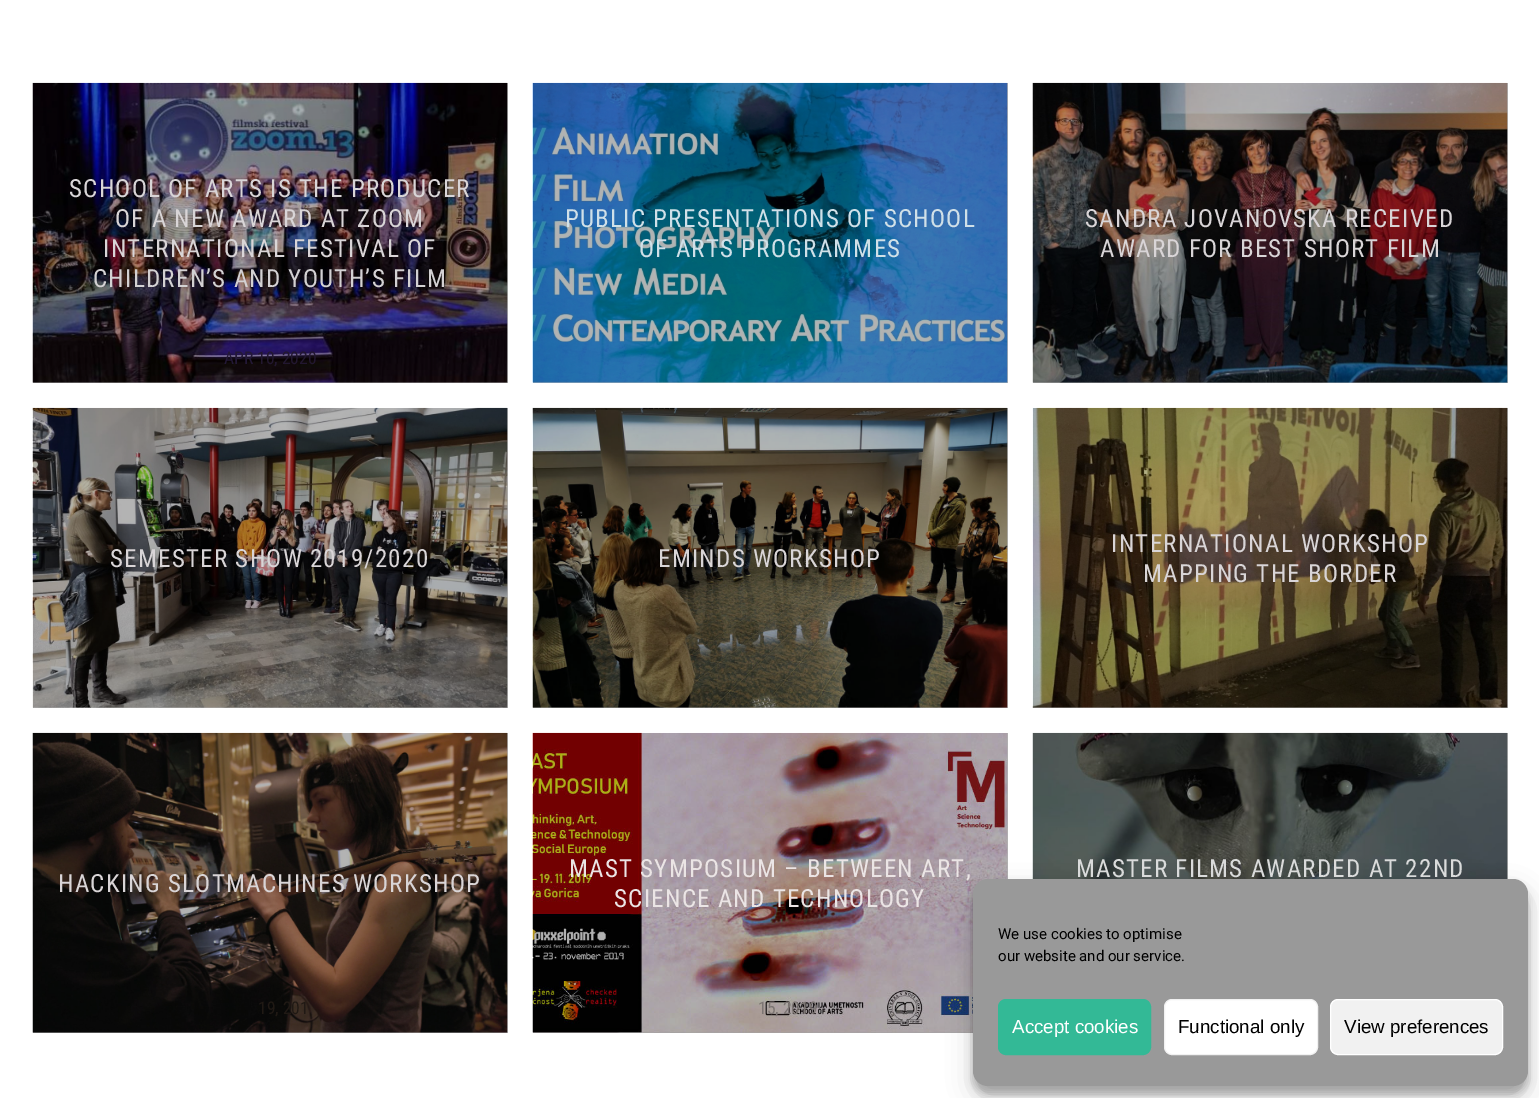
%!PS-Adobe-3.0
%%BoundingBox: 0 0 1539 1098
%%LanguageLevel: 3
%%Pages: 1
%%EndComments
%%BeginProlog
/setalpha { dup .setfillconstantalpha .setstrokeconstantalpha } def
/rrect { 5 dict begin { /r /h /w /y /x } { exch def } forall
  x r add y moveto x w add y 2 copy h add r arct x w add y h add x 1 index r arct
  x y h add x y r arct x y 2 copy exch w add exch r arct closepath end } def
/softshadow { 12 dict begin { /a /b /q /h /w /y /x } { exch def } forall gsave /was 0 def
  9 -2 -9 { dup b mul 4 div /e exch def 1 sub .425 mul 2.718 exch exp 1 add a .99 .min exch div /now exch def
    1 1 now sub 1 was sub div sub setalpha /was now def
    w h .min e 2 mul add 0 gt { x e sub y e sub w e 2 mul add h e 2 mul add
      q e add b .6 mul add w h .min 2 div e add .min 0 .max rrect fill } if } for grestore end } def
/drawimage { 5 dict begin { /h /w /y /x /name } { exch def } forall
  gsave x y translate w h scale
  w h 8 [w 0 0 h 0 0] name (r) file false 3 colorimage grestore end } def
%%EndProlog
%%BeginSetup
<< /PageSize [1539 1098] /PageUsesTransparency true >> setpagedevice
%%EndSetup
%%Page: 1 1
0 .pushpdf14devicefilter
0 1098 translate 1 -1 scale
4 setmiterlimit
1 setgray
0 0 1539 1098 rectfill
0.702 setgray
1507 733 1 146 rectfill
533 733 475 300 rectfill
33 733 475 300 rectfill
1033 408 475 300 rectfill
533 408 475 300 rectfill
33 408 475 300 rectfill
1033 83 475 300 rectfill
533 83 475 300 rectfill
33 83 475 300 rectfill
(images/1.raw) 32 82 476 301 drawimage
(images/2.raw) 532 82 476 301 drawimage
(images/3.raw) 1032 82 476 301 drawimage
(images/4.raw) 32 407 476 301 drawimage
(images/5.raw) 532 407 476 301 drawimage
(images/6.raw) 1032 407 476 301 drawimage
(images/7.raw) 532 732 476 301 drawimage
(images/8.raw) 1032 732 476 147 drawimage
(images/9.raw) 32 732 476 301 drawimage
0 setgray
973 886 555 208 15 4 0.23 softshadow
973 891 555 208 15 12.5 0.19 softshadow
0.6 setgray
973 879 555 207 15 rrect fill
0.2 0.725 0.588 setrgbcolor
998.5 999.5 152 55 7.5 rrect gsave fill grestore
stroke
1 setgray
1164.5 999.5 153 55 7.5 rrect gsave fill grestore
0.945 setgray
stroke
1330.5 999.5 172 55 7.5 rrect gsave fill grestore
1 setgray
stroke
/RobotoCondensed-Regular [25 0 0 -25 0 0] selectfont
0.851 0.835 0.843 setrgbcolor
69 197 moveto 1.25 0 (SCHOOL OF ARTS IS THE PRODUCER) ashow
115 227 moveto 1.25 0 (OF A NEW AWARD AT ZOOM) ashow
103 257 moveto 1.25 0 (INTERNATIONAL FESTIVAL OF) ashow
0.827 0.82 0.827 setrgbcolor
93 287 moveto 1.25 0 (CHILDREN’S AND YOUTH’S FILM) ashow
/RobotoCondensed-Regular [17.5 0 0 -17.5 0 0] selectfont
0.137 0.094 0.216 setrgbcolor
224 364 moveto (APR) show
0.133 0.09 0.188 setrgbcolor
257 364 moveto (10, 2020) show
/RobotoCondensed-Regular [25 0 0 -25 0 0] selectfont
0.816 0.878 0.91 setrgbcolor
565 227 moveto 1.25 0 (PUBLIC PRESENTATIONS OF SCHOOL) ashow
639 257 moveto 1.25 0 (OF ARTS PROGRAMMES) ashow
0.851 0.835 0.843 setrgbcolor
1085 227 moveto 1.25 0 (SANDRA JOVANOVSKA RECEIVED) ashow
1100 257 moveto 1.25 0 (AWARD FOR BEST SHORT FILM) ashow
/RobotoCondensed-Regular [17.5 0 0 -17.5 0 0] selectfont
0.086 0.094 0.114 setrgbcolor
1274 364 moveto (,) show
/RobotoCondensed-Regular [25 0 0 -25 0 0] selectfont
0.851 0.835 0.843 setrgbcolor
110 567 moveto 1.25 0 (SEMESTER SHOW 2019/2020) ashow
658 567 moveto 1.25 0 (EMINDS WORKSHOP) ashow
1111 552 moveto 1.25 0 (INTERNATIONAL WORKSHOP) ashow
1143 582 moveto 1.25 0 (MAPPING THE BORDER) ashow
0.922 0.898 0.898 setrgbcolor
569 877 moveto 1.25 0 (MAST SYMPOSIUM – BETWEEN ART,) ashow
614 907 moveto 1.25 0 (SCIENCE AND TECHNOLOGY) ashow
/RobotoCondensed-Regular [17.5 0 0 -17.5 0 0] selectfont
0.486 0.459 0.451 setrgbcolor
758 1014 moveto (15, 2019) show
/RobotoCondensed-Regular [25 0 0 -25 0 0] selectfont
0.855 0.859 0.859 setrgbcolor
1076 877 moveto 1.25 0 (MASTER FILMS AWARDED AT 22ND) ashow
0.851 0.835 0.843 setrgbcolor
58 892 moveto 1.25 0 (HACKING SLOTMACHINES WORKSHOP) ashow
/RobotoCondensed-Regular [17.5 0 0 -17.5 0 0] selectfont
0.125 0.098 0.078 setrgbcolor
258 1014 moveto (19, 201) show
/Roboto-Regular [15 0 0 -15 0 0] selectfont
0 setgray
998 939 moveto (We use cookies to optimise) show
998 961 moveto (our website and our service.) show
/LiberationSans-Regular [18.75 0 0 -18.75 0 0] selectfont
1 setgray
1012 1033 moveto (Accept cookies) show
0 setgray
1178 1033 moveto (Functional only) show
1344 1033 moveto (View preferences) show
.poppdf14devicefilter showpage
%%EOF
